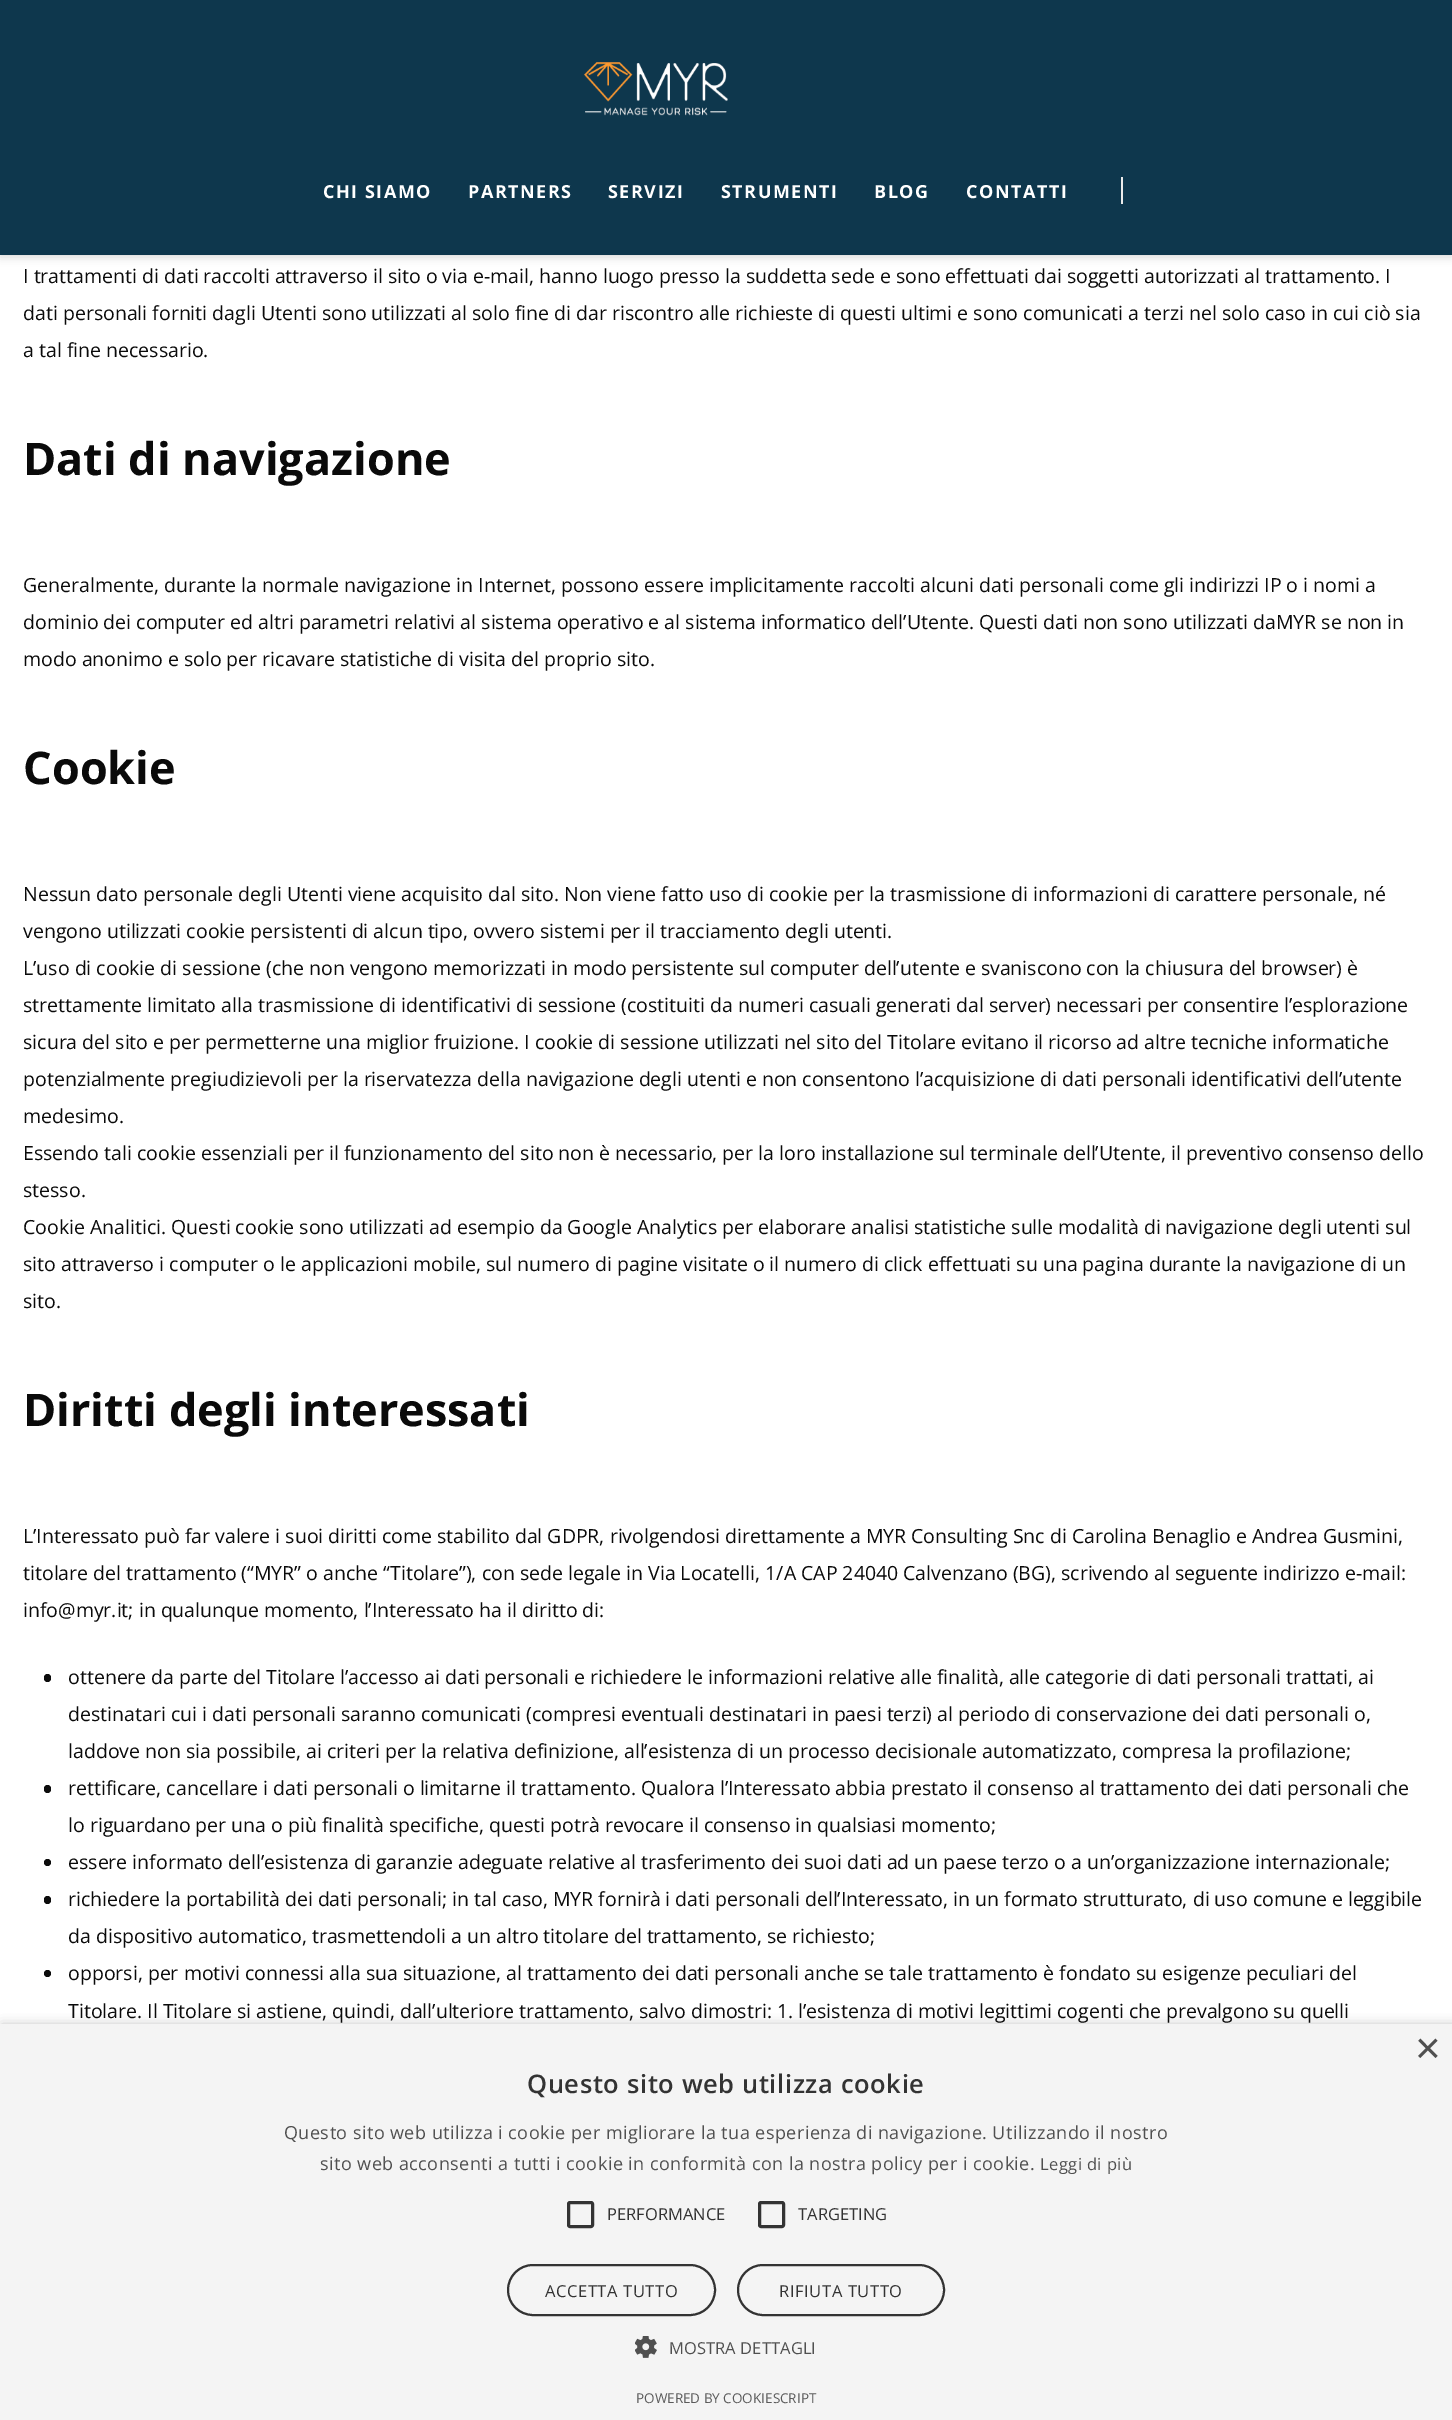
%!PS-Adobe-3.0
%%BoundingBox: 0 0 1452 2420
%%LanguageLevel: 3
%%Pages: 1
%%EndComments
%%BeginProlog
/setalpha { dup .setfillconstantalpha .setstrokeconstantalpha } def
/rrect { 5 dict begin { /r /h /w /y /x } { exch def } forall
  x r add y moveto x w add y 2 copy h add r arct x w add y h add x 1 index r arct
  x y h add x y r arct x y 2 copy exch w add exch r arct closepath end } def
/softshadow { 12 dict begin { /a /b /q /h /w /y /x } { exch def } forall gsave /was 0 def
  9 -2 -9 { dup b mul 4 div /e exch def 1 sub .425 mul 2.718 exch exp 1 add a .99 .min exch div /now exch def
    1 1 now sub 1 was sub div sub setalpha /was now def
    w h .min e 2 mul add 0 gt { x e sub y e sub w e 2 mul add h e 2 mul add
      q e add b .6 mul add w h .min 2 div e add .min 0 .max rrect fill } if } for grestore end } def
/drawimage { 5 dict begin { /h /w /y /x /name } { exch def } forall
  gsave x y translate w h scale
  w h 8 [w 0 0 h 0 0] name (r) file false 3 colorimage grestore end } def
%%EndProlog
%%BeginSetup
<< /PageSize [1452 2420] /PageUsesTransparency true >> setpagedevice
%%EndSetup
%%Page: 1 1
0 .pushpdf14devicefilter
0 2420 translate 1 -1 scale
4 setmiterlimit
1 setgray
0 0 1452 2420 rectfill
0 setgray
0 2 1452 255 0 4.5 0.15 softshadow
0.055 0.216 0.302 setrgbcolor
0 0 1452 255 rectfill
(images/1.raw) 584 62 144 54 drawimage
0.922 setgray
1121 177 2 27 rectfill
0.047 setgray
44 1674 7 8 3.5 rrect fill
44 1785 7 8 3.5 rrect fill
newpath 47.5 1862.5 3.5 0 360 arc closepath fill
44 1896 7 8 3.5 rrect fill
newpath 47.5 1973.5 3.5 0 360 arc closepath fill
0 setgray
2 2027 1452 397 0 6 0.35 softshadow
0.957 setgray
0 2024 1452 396 rectfill
0.2 setgray
3 setlinewidth
568.5 2202.5 24 24 1.5 rrect stroke
759.5 2202.5 24 24 1.5 rrect stroke
2 setlinewidth
508 2265 207 50 25 rrect stroke
738 2265 206 50 25 rrect stroke
(images/2.raw) 635 2336 22 22 drawimage
/OpenSans-Bold [18 0 0 -18 0 0] selectfont
1 setgray
323 198 moveto 1.5 0 (CHI SIAMO) ashow
468 198 moveto 1.5 0 (PARTNERS) ashow
608 198 moveto 1.5 0 (SERVIZI) ashow
721 198 moveto 1.5 0 (STRUMENTI) ashow
874 198 moveto 1.5 0 (BLOG) ashow
966 198 moveto 1.5 0 (CONTATTI) ashow
/OpenSans-Regular [19.5 0 0 -19.5 0 0] selectfont
0.039 setgray
23 283 moveto (I trattamenti di dati raccolti attraverso il sito o via e-mail, hanno luogo presso la suddetta sede e sono effettuati dai soggetti autorizzati al trattamento. I) show
23 320 moveto (dati personali forniti dagli Utenti sono utilizzati al solo fine di dar riscontro alle richieste di questi ultimi e sono comunicati a terzi nel solo caso in cui ciò sia) show
23 357 moveto (a tal fine necessario.) show
/OpenSans-Bold [45 0 0 -45 0 0] selectfont
23 475 moveto (Dati di navigazione) show
/OpenSans-Regular [19.5 0 0 -19.5 0 0] selectfont
23 592 moveto (Generalmente, durante la normale navigazione in Internet, possono essere implicitamente raccolti alcuni dati personali come gli indirizzi IP o i nomi a) show
23 629 moveto (dominio dei computer ed altri parametri relativi al sistema operativo e al sistema informatico dell’Utente. Questi dati non sono utilizzati daMYR se non in) show
23 666 moveto (modo anonimo e solo per ricavare statistiche di visita del proprio sito.) show
/OpenSans-Bold [45 0 0 -45 0 0] selectfont
23 784 moveto (Cookie) show
/OpenSans-Regular [19.5 0 0 -19.5 0 0] selectfont
23 901 moveto (Nessun dato personale degli Utenti viene acquisito dal sito. Non viene fatto uso di cookie per la trasmissione di informazioni di carattere personale, né) show
23 938 moveto (vengono utilizzati cookie persistenti di alcun tipo, ovvero sistemi per il tracciamento degli utenti.) show
23 975 moveto (L’uso di cookie di sessione \(che non vengono memorizzati in modo persistente sul computer dell’utente e svaniscono con la chiusura del browser\) è) show
23 1012 moveto (strettamente limitato alla trasmissione di identificativi di sessione \(costituiti da numeri casuali generati dal server\) necessari per consentire l’esplorazione) show
23 1049 moveto (sicura del sito e per permetterne una miglior fruizione. I cookie di sessione utilizzati nel sito del Titolare evitano il ricorso ad altre tecniche informatiche) show
23 1086 moveto (potenzialmente pregiudizievoli per la riservatezza della navigazione degli utenti e non consentono l’acquisizione di dati personali identificativi dell’utente) show
23 1123 moveto (medesimo.) show
23 1160 moveto (Essendo tali cookie essenziali per il funzionamento del sito non è necessario, per la loro installazione sul terminale dell’Utente, il preventivo consenso dello) show
23 1197 moveto (stesso.) show
23 1234 moveto (Cookie Analitici. Questi cookie sono utilizzati ad esempio da Google Analytics per elaborare analisi statistiche sulle modalità di navigazione degli utenti sul) show
23 1271 moveto (sito attraverso i computer o le applicazioni mobile, sul numero di pagine visitate o il numero di click effettuati su una pagina durante la navigazione di un) show
23 1308 moveto (sito.) show
/OpenSans-Bold [45 0 0 -45 0 0] selectfont
23 1426 moveto (Diritti degli interessati) show
/OpenSans-Regular [19.5 0 0 -19.5 0 0] selectfont
23 1543 moveto (L’Interessato può far valere i suoi diritti come stabilito dal GDPR, rivolgendosi direttamente a MYR Consulting Snc di Carolina Benaglio e Andrea Gusmini,) show
23 1580 moveto (titolare del trattamento \(“MYR” o anche “Titolare”\), con sede legale in Via Locatelli, 1/A CAP 24040 Calvenzano \(BG\), scrivendo al seguente indirizzo e-mail:) show
23 1617 moveto (info@myr.it; in qualunque momento, l’Interessato ha il diritto di:) show
68 1684 moveto (ottenere da parte del Titolare l’accesso ai dati personali e richiedere le informazioni relative alle finalità, alle categorie di dati personali trattati, ai) show
68 1721 moveto (destinatari cui i dati personali saranno comunicati \(compresi eventuali destinatari in paesi terzi\) al periodo di conservazione dei dati personali o,) show
68 1758 moveto (laddove non sia possibile, ai criteri per la relativa definizione, all’esistenza di un processo decisionale automatizzato, compresa la profilazione;) show
68 1795 moveto (rettificare, cancellare i dati personali o limitarne il trattamento. Qualora l’Interessato abbia prestato il consenso al trattamento dei dati personali che) show
68 1832 moveto (lo riguardano per una o più finalità specifiche, questi potrà revocare il consenso in qualsiasi momento;) show
68 1869 moveto (essere informato dell’esistenza di garanzie adeguate relative al trasferimento dei suoi dati ad un paese terzo o a un’organizzazione internazionale;) show
68 1906 moveto (richiedere la portabilità dei dati personali; in tal caso, MYR fornirà i dati personali dell’Interessato, in un formato strutturato, di uso comune e leggibile) show
68 1943 moveto (da dispositivo automatico, trasmettendoli a un altro titolare del trattamento, se richiesto;) show
68 1980 moveto (opporsi, per motivi connessi alla sua situazione, al trattamento dei dati personali anche se tale trattamento è fondato su esigenze peculiari del) show
68 2018 moveto (Titolare. Il Titolare si astiene, quindi, dall’ulteriore trattamento, salvo dimostri: 1. l’esistenza di motivi legittimi cogenti che prevalgono su quelli) show
/LiberationSans-Regular [44 0 0 -44 0 0] selectfont
0.314 setgray
1415 2063 moveto (×) show
/OpenSans-SemiBold [25.5 0 0 -25.5 0 0] selectfont
0.2 setgray
527 2093 moveto 0.6 0 (Questo sito web utilizza cookie) ashow
/OpenSans-Regular [18 0 0 -18 0 0] selectfont
0.314 setgray
284 2139 moveto 0.45 0 (Questo sito web utilizza i cookie per migliorare la tua esperienza di navigazione. Utilizzando il nostro) ashow
320 2170 moveto 0.45 0 (sito web acconsenti a tutti i cookie in conformità con la nostra policy per i cookie.) ashow
/OpenSans-Regular [16.5 0 0 -16.5 0 0] selectfont
1040 2170 moveto 0.45 0 (Leggi di più) ashow
0.2 setgray
607 2220 moveto (PERFORMANCE) show
798 2220 moveto (TARGETING) show
545 2297 moveto 0.6 0 (ACCETTA TUTTO) ashow
779 2297 moveto 0.6 0 (RIFIUTA TUTTO) ashow
0.314 setgray
669 2354 moveto 0.1 0 (MOSTRA DETTAGLI) ashow
/OpenSans-Regular [13.5 0 0 -13.5 0 0] selectfont
0.353 setgray
636 2403 moveto (POWERED BY COOKIESCRIPT) show
.poppdf14devicefilter showpage
%%EOF
